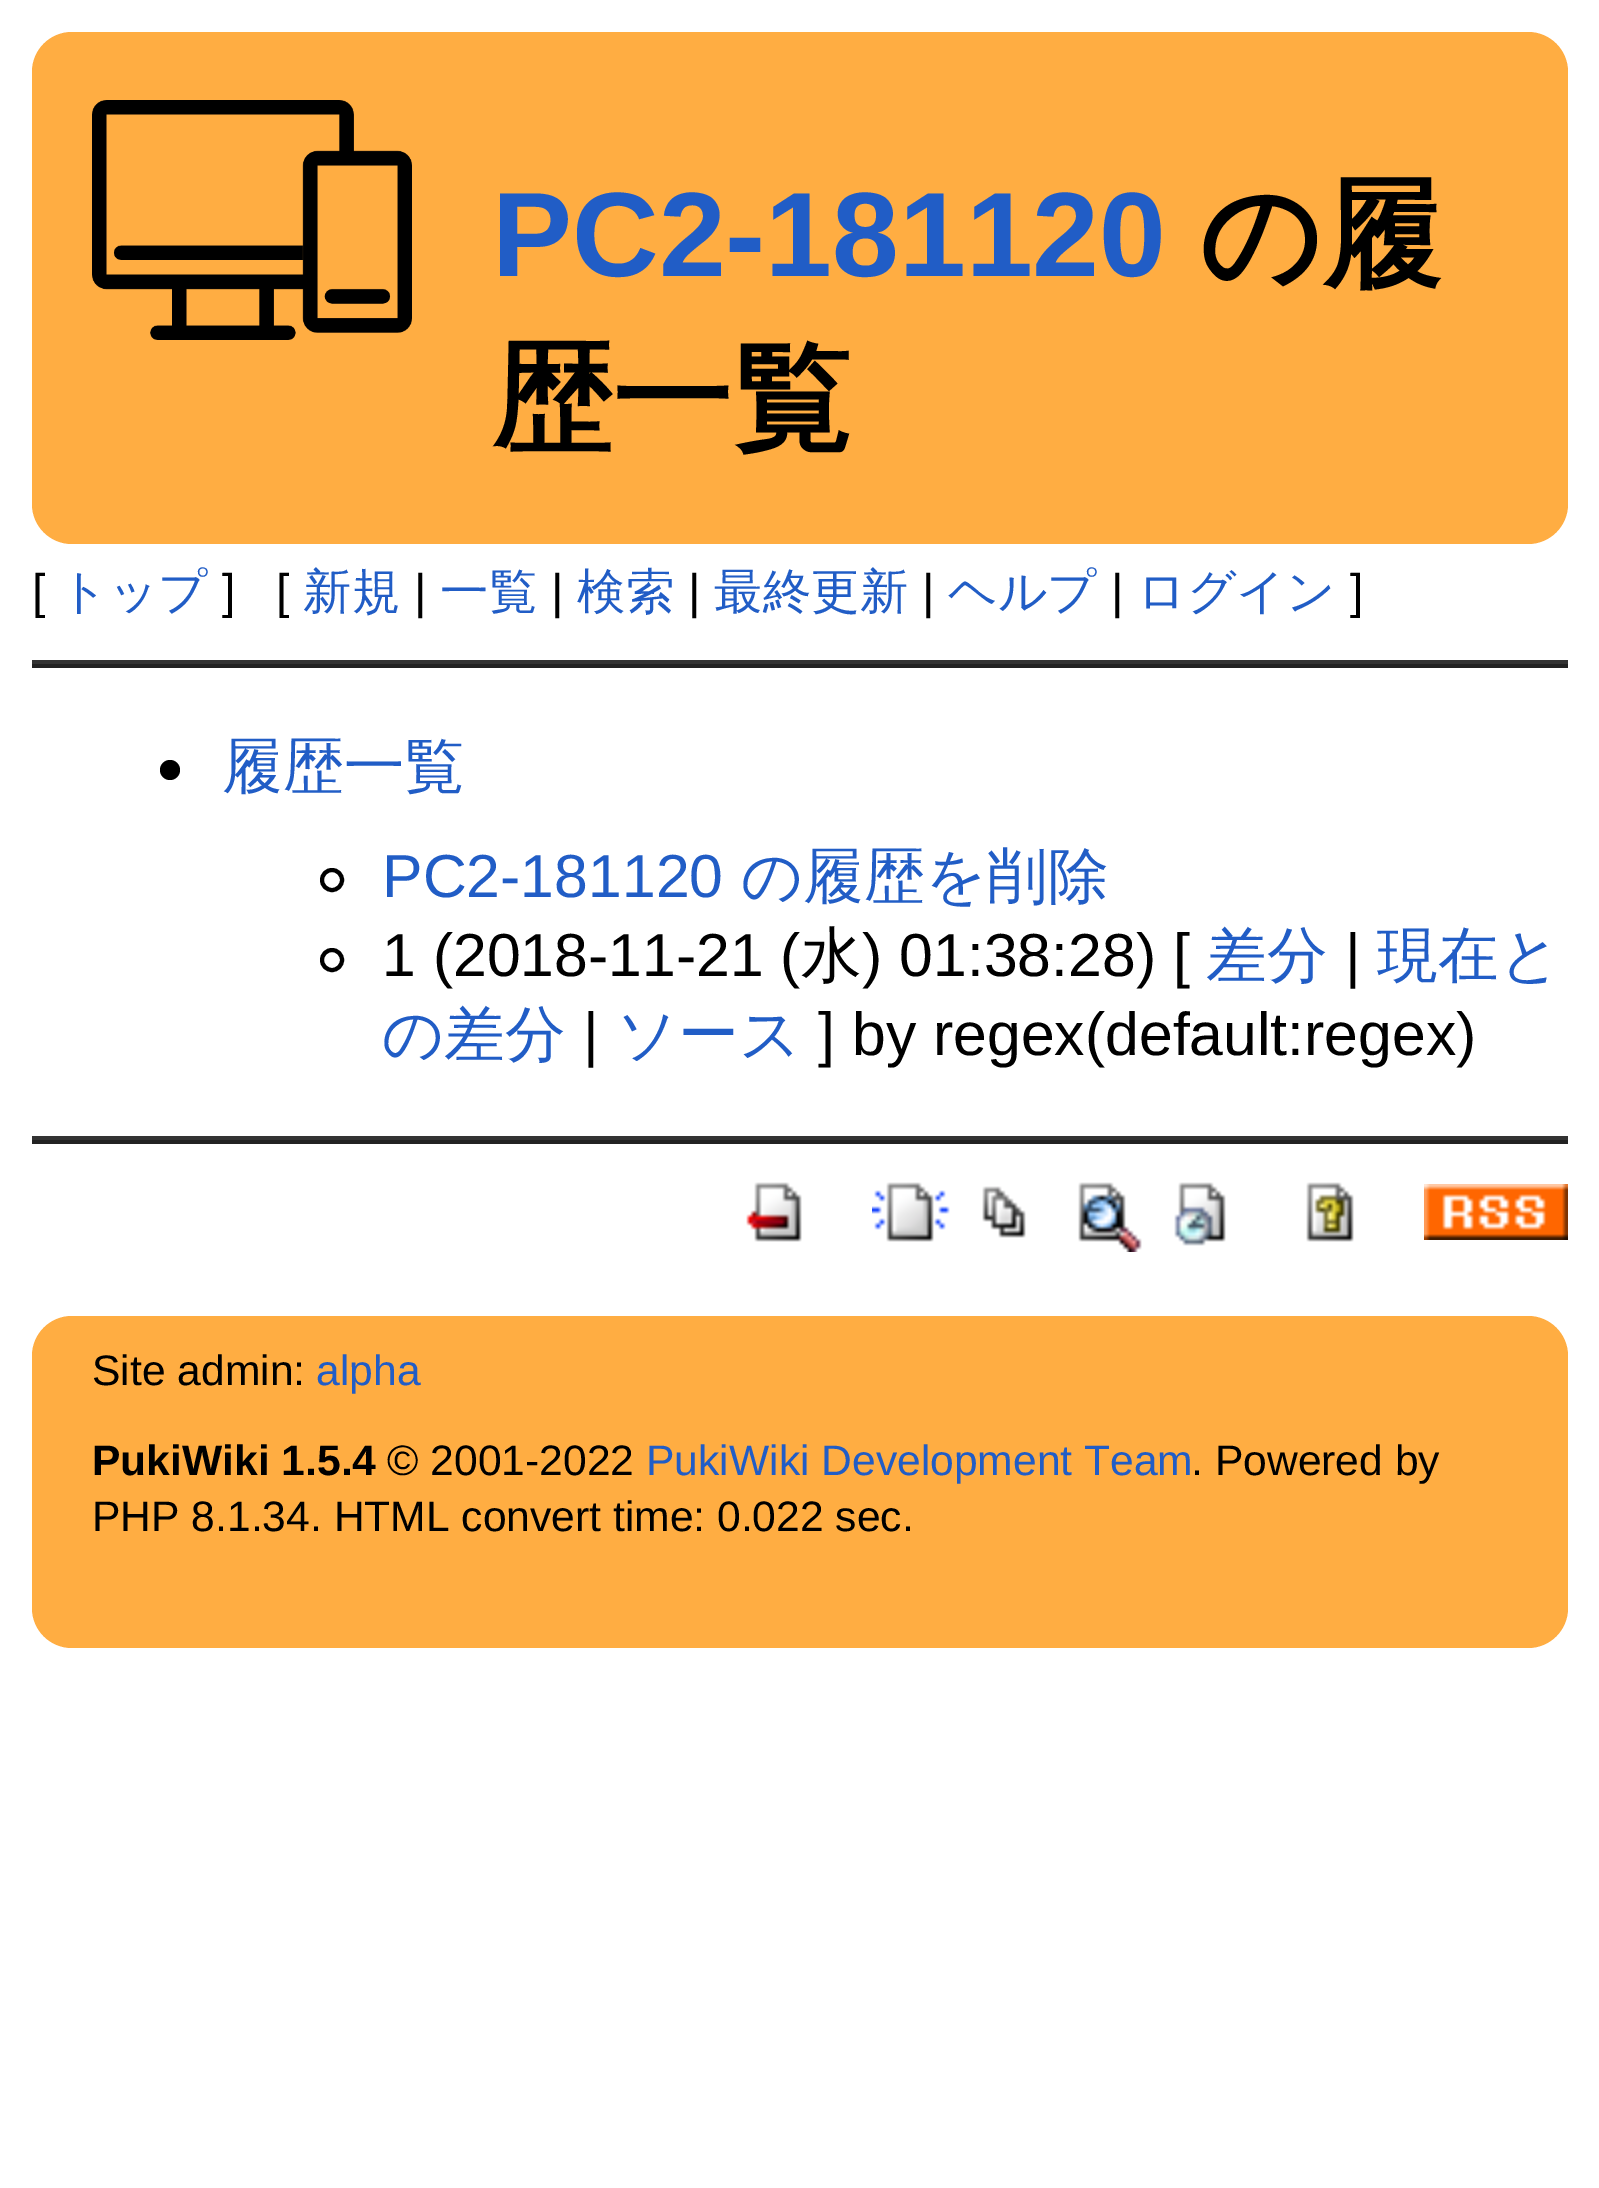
%!PS-Adobe-3.0
%%BoundingBox: 0 0 1599 2188
%%LanguageLevel: 3
%%Pages: 1
%%EndComments
%%BeginProlog
/rrect { 5 dict begin { /r /h /w /y /x } { exch def } forall
  x r add y moveto x w add y 2 copy h add r arct x w add y h add x 1 index r arct
  x y h add x y r arct x y 2 copy exch w add exch r arct closepath end } def
/drawimage { 5 dict begin { /h /w /y /x /name } { exch def } forall
  gsave x y translate w h scale
  w h 8 [w 0 0 h 0 0] name (r) file false 3 colorimage grestore end } def
%%EndProlog
%%BeginSetup
<< /PageSize [1599 2188] >> setpagedevice
%%EndSetup
%%Page: 1 1
0 2188 translate 1 -1 scale
4 setmiterlimit
1 setgray
0 0 1599 2188 rectfill
1 0.678 0.259 setrgbcolor
32 32 1536 512 40 rrect fill
(images/1.raw) 92 100 320 240 drawimage
0.2 setgray
32 660 1536 4 rectfill
0.133 setgray
32 664 1536 4 rectfill
0 setgray
newpath 170 770 10 0 360 arc closepath fill
4 setlinewidth
newpath 332 880 10 0 360 arc closepath stroke
newpath 332 960 10 0 360 arc closepath stroke
0.2 setgray
32 1136 1536 4 rectfill
0.133 setgray
32 1140 1536 4 rectfill
(images/2.raw) 746 1182 56 60 drawimage
(images/3.raw) 872 1182 78 60 drawimage
(images/4.raw) 982 1186 44 52 drawimage
(images/5.raw) 1078 1182 64 70 drawimage
(images/6.raw) 1174 1182 52 64 drawimage
(images/7.raw) 1306 1182 48 60 drawimage
(images/8.raw) 1424 1184 144 56 drawimage
1 0.678 0.259 setrgbcolor
32 1316 1536 332 40 rrect fill
/LiberationSans-Bold [120 0 0 -120 0 0] selectfont
0.129 0.365 0.776 setrgbcolor
492 276 moveto (PC2-181120) show
/WenQuanYiZenHei-Bold [120 0 0 -120 0 0] selectfont
0 setgray
1199 276 moveto (の履) show
492 440 moveto (歴一覧) show
/LiberationSans-Regular [48.5 0 0 -48.5 0 0] selectfont
32 608 moveto ([) show
/WenQuanYiZenHei-Medium [48.5 0 0 -48.5 0 0] selectfont
0.129 0.365 0.776 setrgbcolor
59 608 moveto (トップ) show
/LiberationSans-Regular [48.5 0 0 -48.5 0 0] selectfont
0 setgray
222 608 moveto (]) show
276 608 moveto ([) show
/WenQuanYiZenHei-Medium [48.5 0 0 -48.5 0 0] selectfont
0.129 0.365 0.776 setrgbcolor
303 608 moveto (新規) show
/LiberationSans-Regular [48.5 0 0 -48.5 0 0] selectfont
0 setgray
414 608 moveto (|) show
/WenQuanYiZenHei-Medium [48.5 0 0 -48.5 0 0] selectfont
0.129 0.365 0.776 setrgbcolor
440 608 moveto (一覧) show
/LiberationSans-Regular [48.5 0 0 -48.5 0 0] selectfont
0 setgray
551 608 moveto (|) show
/WenQuanYiZenHei-Medium [48.5 0 0 -48.5 0 0] selectfont
0.129 0.365 0.776 setrgbcolor
577 608 moveto (検索) show
/LiberationSans-Regular [48.5 0 0 -48.5 0 0] selectfont
0 setgray
688 608 moveto (|) show
/WenQuanYiZenHei-Medium [48.5 0 0 -48.5 0 0] selectfont
0.129 0.365 0.776 setrgbcolor
714 608 moveto (最終更新) show
/LiberationSans-Regular [48.5 0 0 -48.5 0 0] selectfont
0 setgray
922 608 moveto (|) show
/WenQuanYiZenHei-Medium [48.5 0 0 -48.5 0 0] selectfont
0.129 0.365 0.776 setrgbcolor
948 608 moveto (ヘルプ) show
/LiberationSans-Regular [48.5 0 0 -48.5 0 0] selectfont
0 setgray
1111 608 moveto (|) show
/WenQuanYiZenHei-Medium [48.5 0 0 -48.5 0 0] selectfont
0.129 0.365 0.776 setrgbcolor
1137 608 moveto (ログイン) show
/LiberationSans-Regular [48.5 0 0 -48.5 0 0] selectfont
0 setgray
1350 608 moveto (]) show
/WenQuanYiZenHei-Medium [60.75 0 0 -60.75 0 0] selectfont
0.129 0.365 0.776 setrgbcolor
222 787 moveto (履歴一覧) show
/LiberationSans-Regular [60.75 0 0 -60.75 0 0] selectfont
382 897 moveto (PC2-181120) show
/WenQuanYiZenHei-Medium [60.75 0 0 -60.75 0 0] selectfont
741 897 moveto (の履歴を削除) show
/LiberationSans-Regular [60.75 0 0 -60.75 0 0] selectfont
0 setgray
382 976 moveto (1 \(2018-11-21 \() show
/WenQuanYiZenHei-Medium [60.75 0 0 -60.75 0 0] selectfont
801 976 moveto (水) show
/LiberationSans-Regular [60.75 0 0 -60.75 0 0] selectfont
862 976 moveto (\) 01:38:28\)) show
1173 976 moveto ([) show
/WenQuanYiZenHei-Medium [60.75 0 0 -60.75 0 0] selectfont
0.129 0.365 0.776 setrgbcolor
1206 976 moveto (差分) show
/LiberationSans-Regular [60.75 0 0 -60.75 0 0] selectfont
0 setgray
1345 976 moveto (|) show
/WenQuanYiZenHei-Medium [60.75 0 0 -60.75 0 0] selectfont
0.129 0.365 0.776 setrgbcolor
1377 976 moveto (現在と) show
382 1055 moveto (の差分) show
/LiberationSans-Regular [60.75 0 0 -60.75 0 0] selectfont
0 setgray
583 1055 moveto (|) show
/WenQuanYiZenHei-Medium [60.75 0 0 -60.75 0 0] selectfont
0.129 0.365 0.776 setrgbcolor
616 1055 moveto (ソース) show
/LiberationSans-Regular [60.75 0 0 -60.75 0 0] selectfont
0 setgray
818 1055 moveto (] by regex\(default:regex\)) show
/LiberationSans-Regular [42.6 0 0 -42.6 0 0] selectfont
92 1385 moveto (Site admin:) show
0.129 0.365 0.776 setrgbcolor
316 1385 moveto (alpha) show
/LiberationSans-Bold [42.6 0 0 -42.6 0 0] selectfont
0 setgray
92 1475 moveto (PukiWiki 1.5.4) show
/LiberationSans-Regular [42.6 0 0 -42.6 0 0] selectfont
387 1475 moveto (© 2001-2022) show
0.129 0.365 0.776 setrgbcolor
646 1475 moveto (PukiWiki Development Team) show
0 setgray
1191 1475 moveto (. Powered by) show
92 1531 moveto (PHP 8.1.34. HTML convert time: 0.022 sec.) show
showpage
%%EOF
